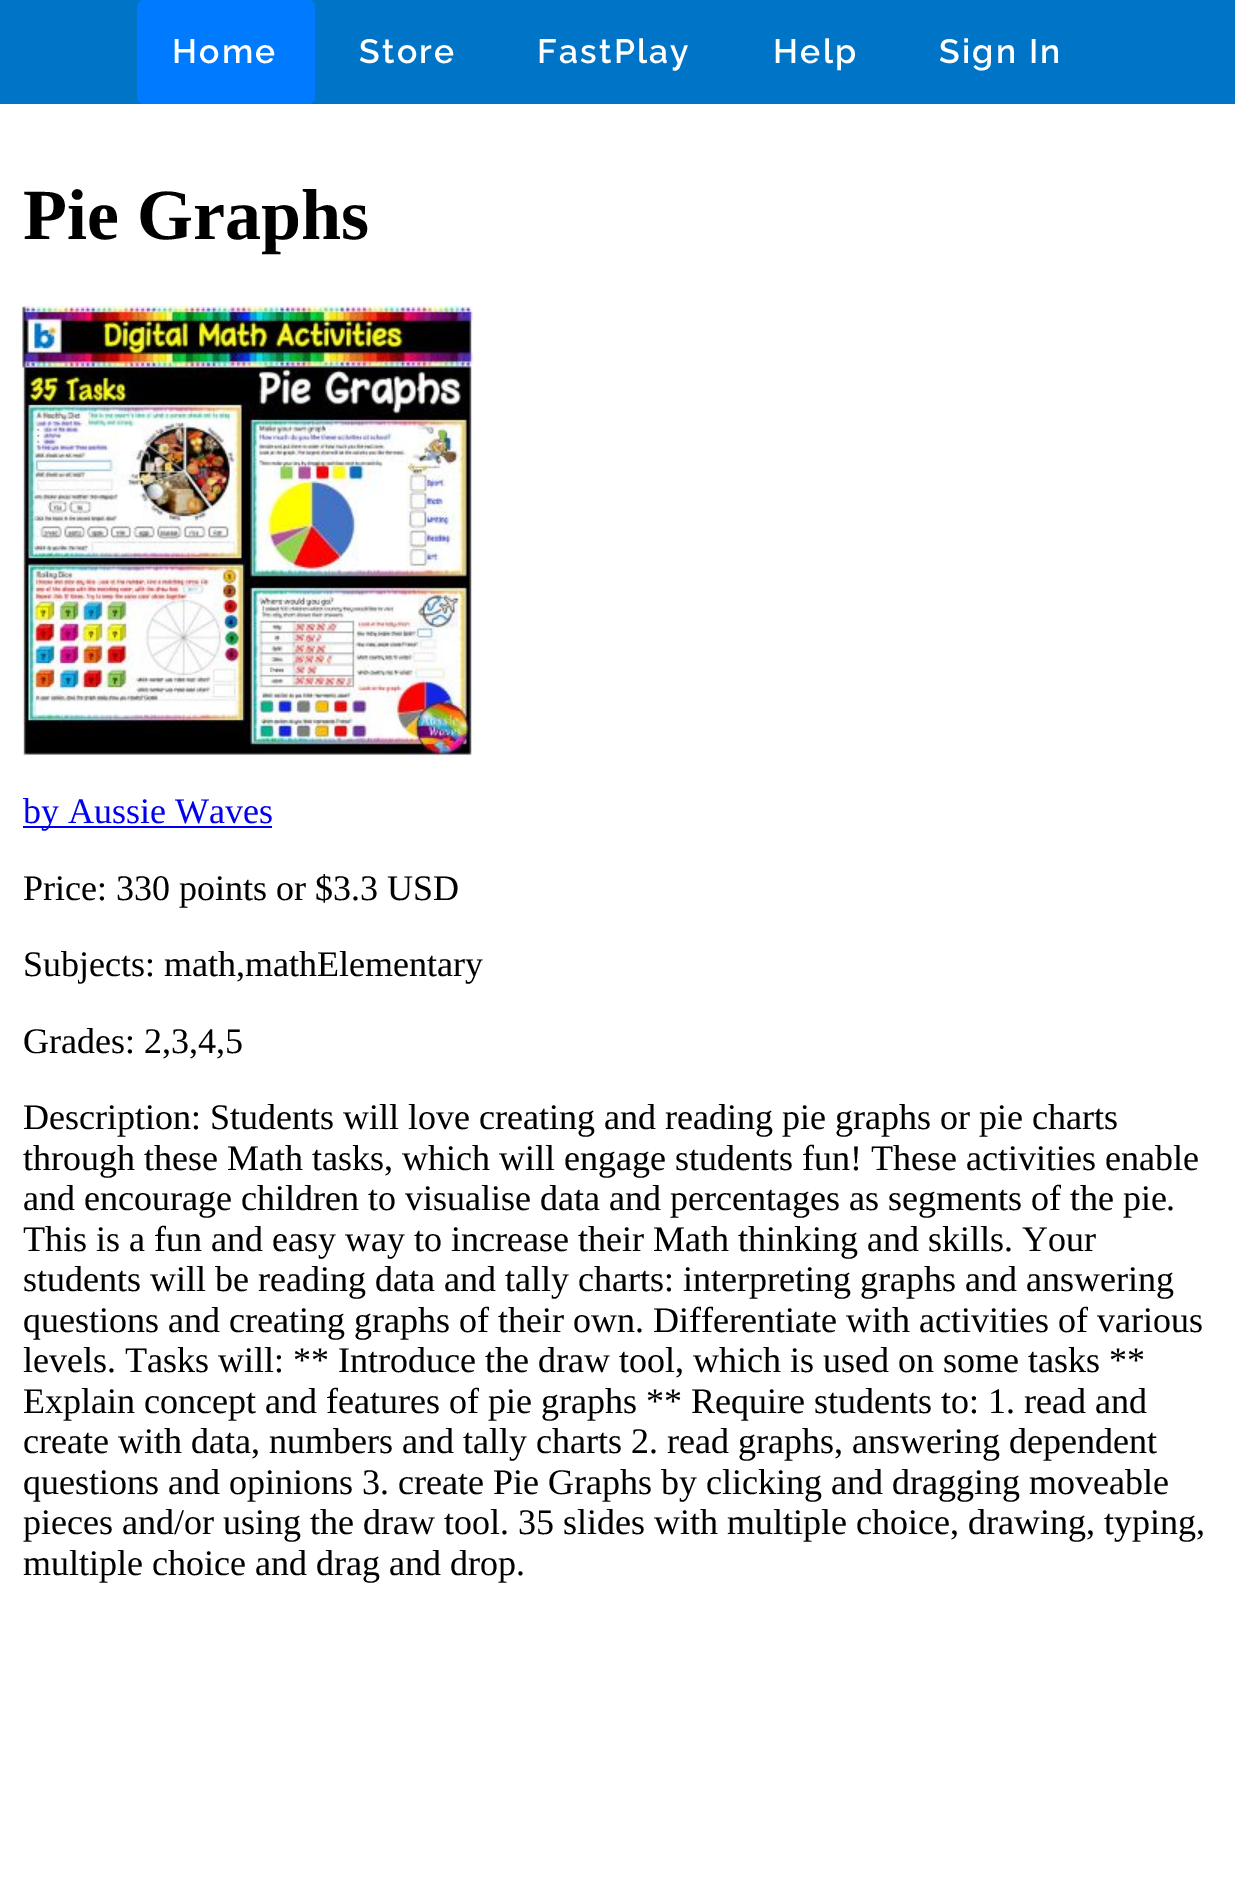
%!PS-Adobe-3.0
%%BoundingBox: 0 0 1235 1889
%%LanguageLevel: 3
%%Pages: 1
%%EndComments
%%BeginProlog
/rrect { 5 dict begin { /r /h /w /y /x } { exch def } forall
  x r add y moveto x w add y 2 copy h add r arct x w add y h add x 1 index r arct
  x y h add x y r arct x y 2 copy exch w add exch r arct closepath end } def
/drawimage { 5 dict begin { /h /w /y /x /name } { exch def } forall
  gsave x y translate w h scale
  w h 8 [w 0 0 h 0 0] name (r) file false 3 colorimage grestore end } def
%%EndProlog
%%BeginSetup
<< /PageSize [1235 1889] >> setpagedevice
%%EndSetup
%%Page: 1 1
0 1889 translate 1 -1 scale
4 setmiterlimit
1 setgray
0 0 1235 1889 rectfill
0 0.455 0.78 setrgbcolor
0 0 1235 104 rectfill
0 0.482 1 setrgbcolor
137 0 178 104 7 rrect fill
(images/1.raw) 22 306 451 450 drawimage
0 0 0.933 setrgbcolor
23 826 249 2 rectfill
/Raleway-SemiBold [33.75 0 0 -33.75 0 0] selectfont
1 setgray
172 63 moveto 2.25 0 (Home) ashow
359 63 moveto 2.25 0 (Store) ashow
537 63 moveto 2.25 0 (FastPlay) ashow
773 63 moveto 2.25 0 (Help) ashow
939 63 moveto 2.25 0 (Sign In) ashow
/LiberationSerif-Bold [72 0 0 -72 0 0] selectfont
0 setgray
23 239 moveto (Pie Graphs) show
/LiberationSerif-Regular [36 0 0 -36 0 0] selectfont
0 0 0.933 setrgbcolor
23 823 moveto (by Aussie Waves) show
0 setgray
23 900 moveto (Price: 330 points or $3.3 USD) show
23 976 moveto (Subjects: math,mathElementary) show
23 1053 moveto (Grades: 2,3,4,5) show
23 1129 moveto (Description: Students will love creating and reading pie graphs or pie charts) show
23 1170 moveto (through these Math tasks, which will engage students fun! These activities enable) show
23 1210 moveto (and encourage children to visualise data and percentages as segments of the pie.) show
23 1251 moveto (This is a fun and easy way to increase their Math thinking and skills. Your) show
23 1291 moveto (students will be reading data and tally charts: interpreting graphs and answering) show
23 1332 moveto (questions and creating graphs of their own. Differentiate with activities of various) show
23 1372 moveto (levels. Tasks will: ** Introduce the draw tool, which is used on some tasks **) show
23 1413 moveto (Explain concept and features of pie graphs ** Require students to: 1. read and) show
23 1453 moveto (create with data, numbers and tally charts 2. read graphs, answering dependent) show
23 1494 moveto (questions and opinions 3. create Pie Graphs by clicking and dragging moveable) show
23 1534 moveto (pieces and/or using the draw tool. 35 slides with multiple choice, drawing, typing,) show
23 1575 moveto (multiple choice and drag and drop.) show
showpage
%%EOF
